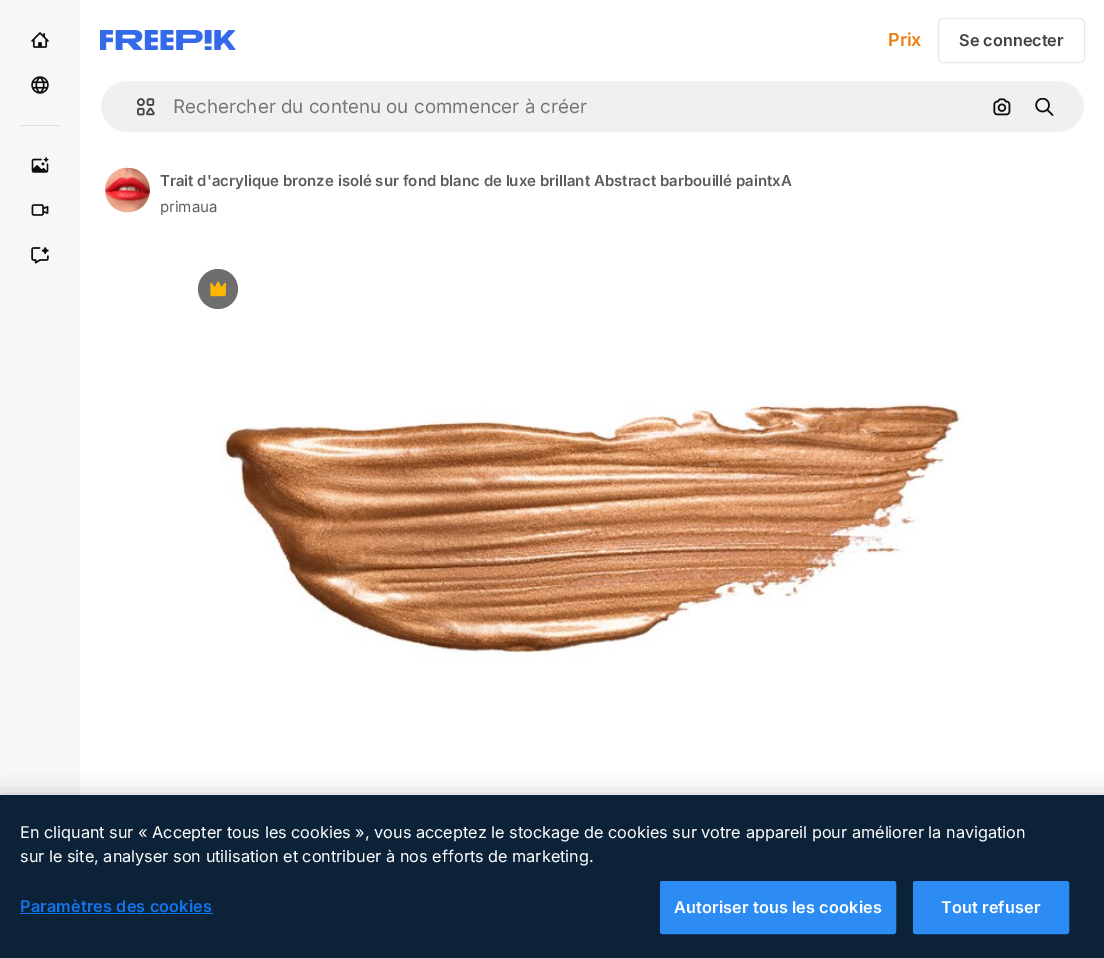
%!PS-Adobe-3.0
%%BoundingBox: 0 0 1104 958
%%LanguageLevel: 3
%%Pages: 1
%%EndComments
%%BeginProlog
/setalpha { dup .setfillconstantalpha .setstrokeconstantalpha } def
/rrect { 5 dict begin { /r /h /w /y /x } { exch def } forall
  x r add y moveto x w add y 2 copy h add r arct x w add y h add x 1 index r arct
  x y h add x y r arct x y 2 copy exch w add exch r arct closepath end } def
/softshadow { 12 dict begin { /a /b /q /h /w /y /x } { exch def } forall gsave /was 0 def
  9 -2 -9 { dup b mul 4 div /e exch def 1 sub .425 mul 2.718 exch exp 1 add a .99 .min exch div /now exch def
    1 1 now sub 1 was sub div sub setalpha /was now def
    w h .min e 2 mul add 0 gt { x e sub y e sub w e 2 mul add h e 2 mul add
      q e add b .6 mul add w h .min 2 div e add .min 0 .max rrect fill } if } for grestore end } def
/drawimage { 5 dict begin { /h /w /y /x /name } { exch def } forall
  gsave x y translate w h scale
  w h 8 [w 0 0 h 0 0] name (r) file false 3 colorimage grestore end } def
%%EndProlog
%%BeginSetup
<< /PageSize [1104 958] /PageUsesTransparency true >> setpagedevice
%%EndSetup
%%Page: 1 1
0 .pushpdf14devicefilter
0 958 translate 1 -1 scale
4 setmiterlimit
1 setgray
0 0 1104 958 rectfill
0.969 setgray
0 0 80 795 rectfill
(images/1.raw) 31 32 18 16 drawimage
(images/2.raw) 31 76 18 18 drawimage
0.878 setgray
20 125 40 1 rectfill
(images/3.raw) 31 157 18 16 drawimage
(images/4.raw) 31 204 18 12 drawimage
(images/5.raw) 31 247 18 17 drawimage
(images/6.raw) 100 30 136 20 drawimage
0.906 setgray
938.5 18.5 146 44 4.5 rrect stroke
0.941 setgray
100.5 80.5 984 52 26 rrect gsave fill grestore
1 setgray
stroke
(images/7.raw) 136 98 19 18 drawimage
(images/8.raw) 993 98 18 18 drawimage
(images/9.raw) 1035 98 19 18 drawimage
(images/10.raw) 105 167 45 46 drawimage
0.431 setgray
newpath 218 289 20 0 360 arc closepath fill
(images/11.raw) 210 281 16 16 drawimage
(images/12.raw) 219 402 743 259 drawimage
0 setgray
0 795 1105 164 0 11 0.2 softshadow
0.043 0.133 0.224 setrgbcolor
0 795 1104 163 rectfill
0.071 0.451 0.922 setrgbcolor
20 913 193 1 rectfill
0.173 0.549 0.957 setrgbcolor
660.5 881.5 235 52 2 rrect gsave fill grestore
stroke
913.5 881.5 155 52 2 rrect gsave fill grestore
stroke
/Inter-SemiBold [18 0 0 -18 0 0] selectfont
0.918 0.494 0.067 setrgbcolor
888 46 moveto (Prix) show
/Inter-SemiBold [16.25 0 0 -16.25 0 0] selectfont
0.259 setgray
959 46 moveto (Se connecter) show
/Inter-Regular [18.75 0 0 -18.75 0 0] selectfont
0.467 setgray
173 113 moveto (Rechercher du contenu ou commencer à créer) show
/Inter-SemiBold [15 0 0 -15 0 0] selectfont
0.361 setgray
160 186 moveto (Trait d'acrylique bronze isolé sur fond blanc de luxe brillant Abstract barbouillé paintxA) show
/Inter-Regular [15 0 0 -15 0 0] selectfont
160 212 moveto (primaua) show
/Inter-Regular [16.25 0 0 -16.25 0 0] selectfont
1 setgray
20 838 moveto (En cliquant sur « Accepter tous les cookies », vous acceptez le stockage de cookies sur votre appareil pour améliorer la navigation) show
20 862 moveto (sur le site, analyser son utilisation et contribuer à nos efforts de marketing.) show
/Inter-SemiBold [16.25 0 0 -16.25 0 0] selectfont
0.071 0.451 0.922 setrgbcolor
20 912 moveto 0.15 0 (Paramètres des cookies) ashow
1 setgray
674 913 moveto 0.15 0 (Autoriser tous les cookies) ashow
941 913 moveto 0.15 0 (Tout refuser) ashow
.poppdf14devicefilter showpage
%%EOF
